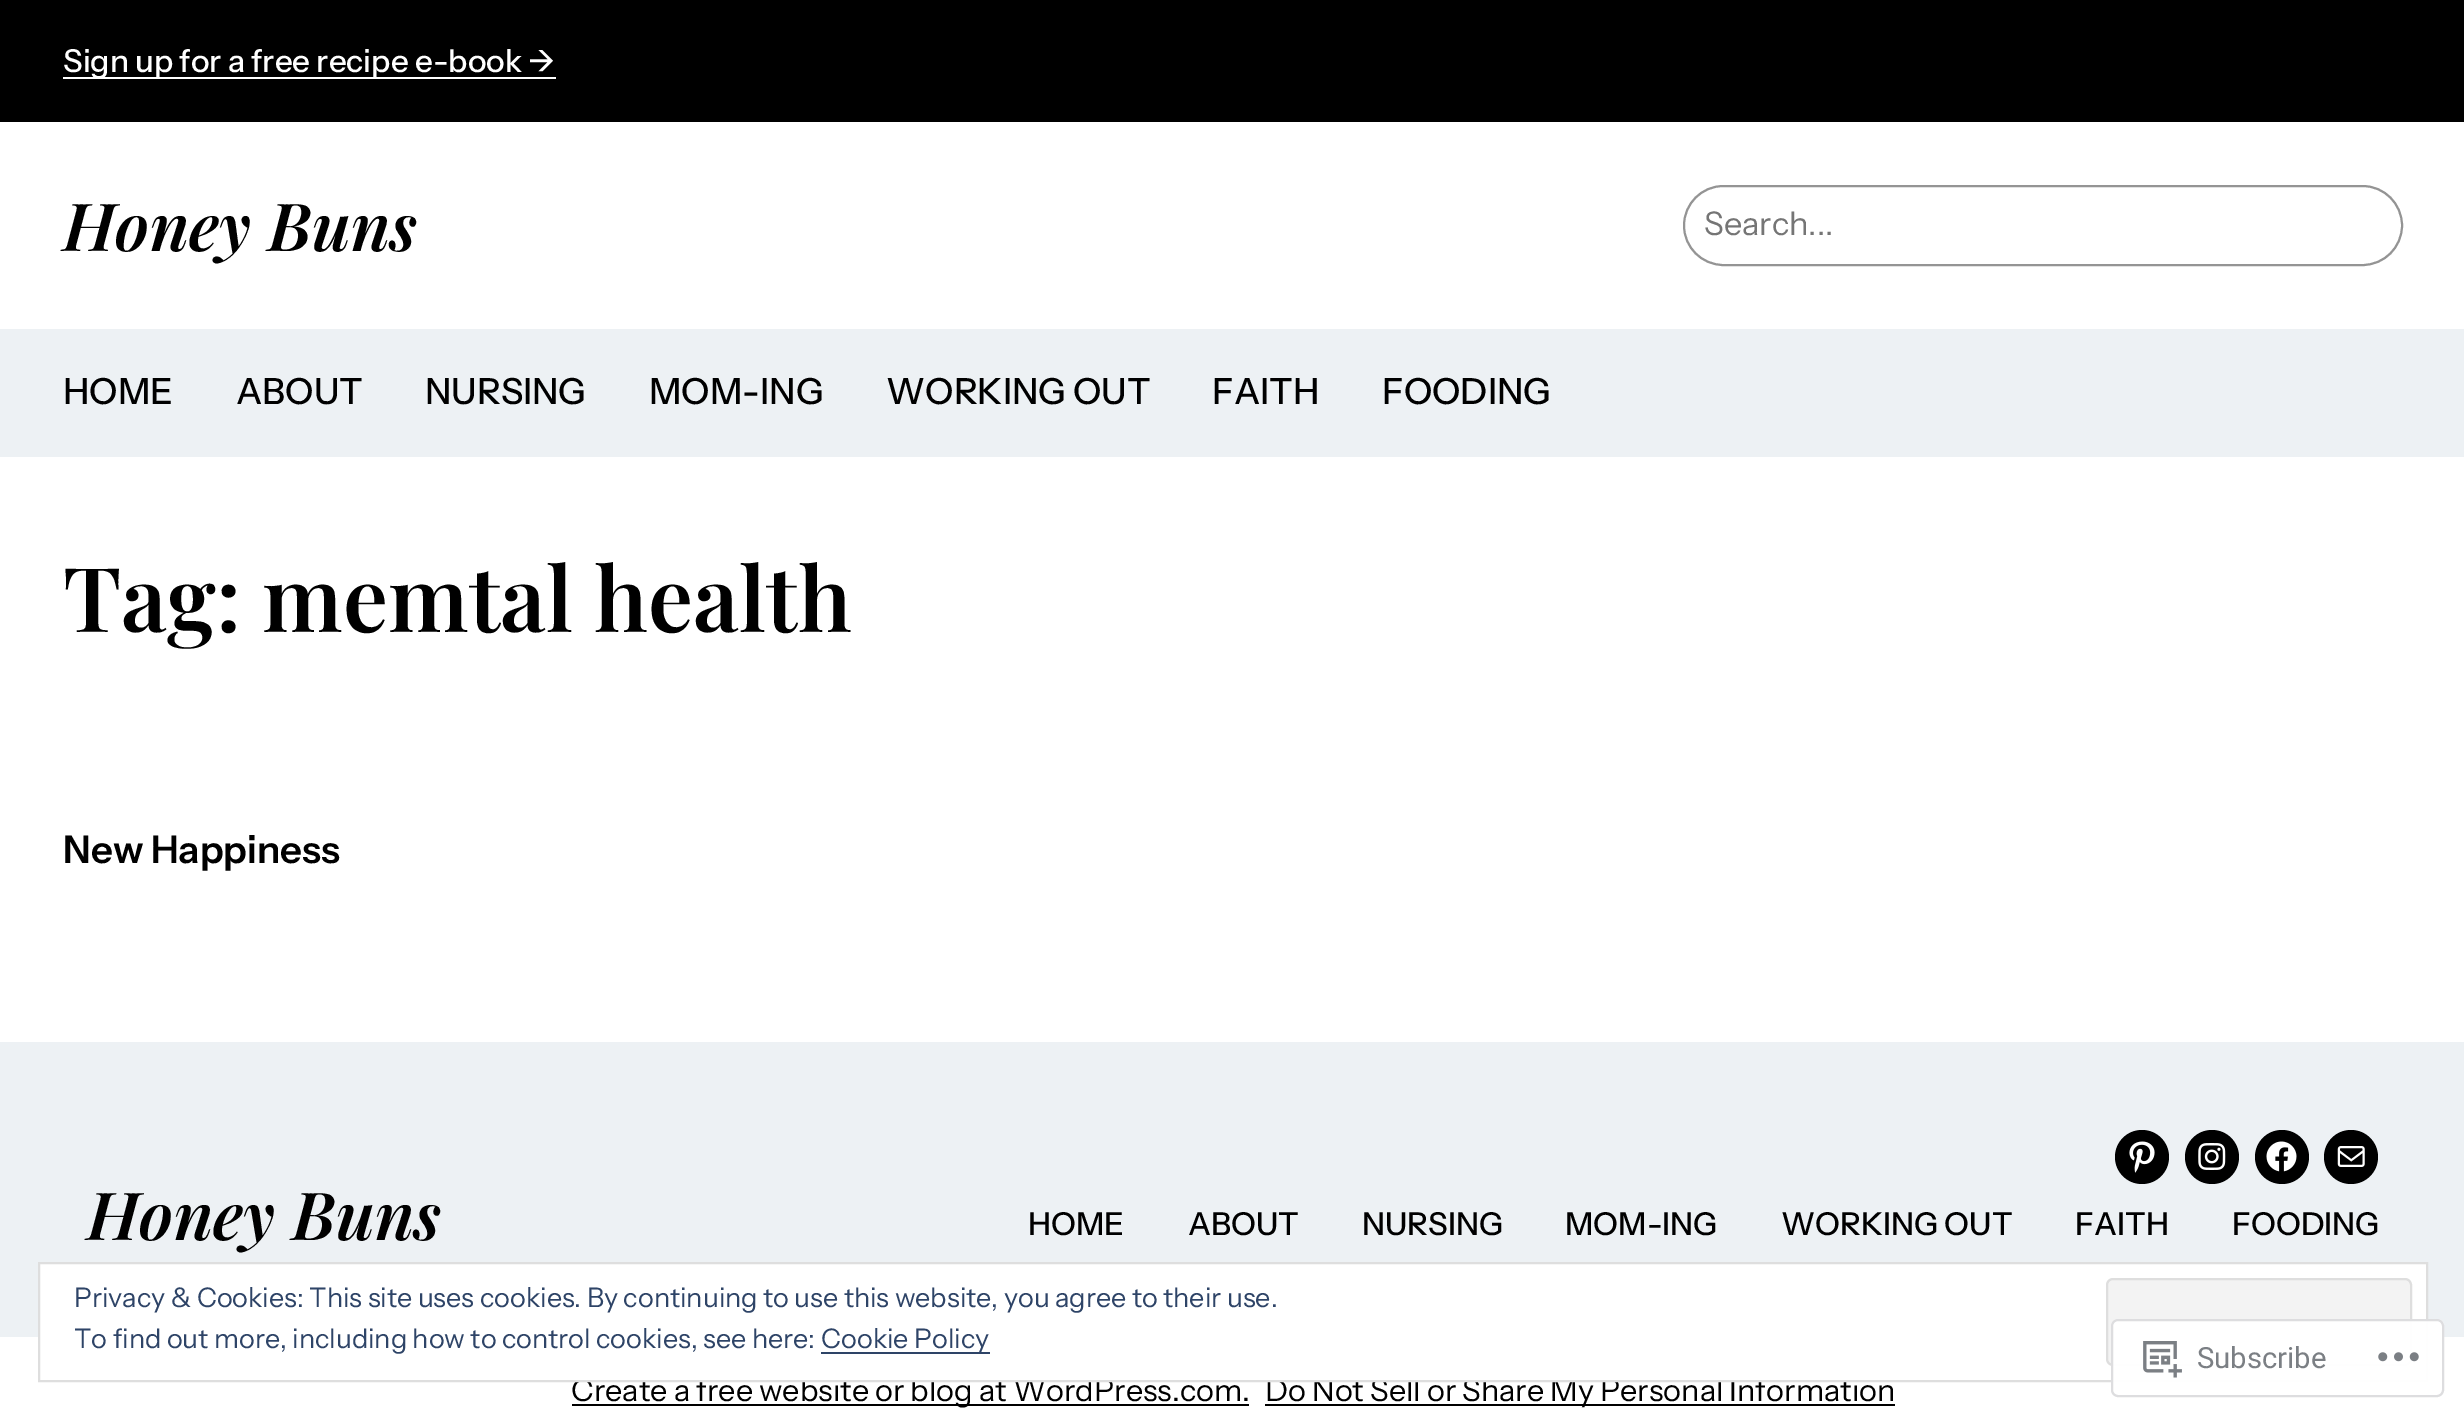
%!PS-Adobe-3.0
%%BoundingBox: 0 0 2464 1419
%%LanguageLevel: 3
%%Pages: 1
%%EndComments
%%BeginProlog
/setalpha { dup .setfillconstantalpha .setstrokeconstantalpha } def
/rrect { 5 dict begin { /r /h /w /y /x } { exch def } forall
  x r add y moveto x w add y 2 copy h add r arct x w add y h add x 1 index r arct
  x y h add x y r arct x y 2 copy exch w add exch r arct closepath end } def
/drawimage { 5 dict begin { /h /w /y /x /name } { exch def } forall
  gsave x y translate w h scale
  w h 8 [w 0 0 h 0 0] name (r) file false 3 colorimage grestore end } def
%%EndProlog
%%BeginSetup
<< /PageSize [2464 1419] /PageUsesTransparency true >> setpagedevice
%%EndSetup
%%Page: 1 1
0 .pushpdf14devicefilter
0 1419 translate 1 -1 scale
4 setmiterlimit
1 setgray
0 0 2464 1419 rectfill
0 setgray
0 0 2464 122 rectfill
1 setgray
63 77 493 2 rectfill
0.58 setgray
2 setlinewidth
1684 186 718 79 39.5 rrect stroke
0.929 0.945 0.957 setrgbcolor
0 329 2464 128 rectfill
0 1042 2464 295 rectfill
0 setgray
newpath 2142 1157 27 0 360 arc closepath fill
(images/1.raw) 2129 1141 26 32 drawimage
newpath 2212 1157 27 0 360 arc closepath fill
(images/2.raw) 2198 1143 28 27 drawimage
newpath 2282 1157 27 0 360 arc closepath fill
(images/3.raw) 2266 1141 31 31 drawimage
newpath 2351 1157 27 0 360 arc closepath fill
(images/4.raw) 2337 1146 28 21 drawimage
572 1404 677 2 rectfill
1265 1404 630 2 rectfill
/InstrumentSans-Medium [31.5 0 0 -31.5 0 0] selectfont
1 setgray
63 72 moveto (Sign up for a free recipe e-book →) show
/PlayfairDisplay-SemiBoldItalic [66.25 0 0 -66.25 0 0] selectfont
0 setgray
63 251 moveto (Honey Buns) show
/InstrumentSans-Regular [32.5 0 0 -32.5 0 0] selectfont
0.459 setgray
1704 235 moveto (Search...) show
/InstrumentSans-Medium [36 0 0 -36 0 0] selectfont
0 setgray
63 404 moveto (HOME) show
236 404 moveto (ABOUT) show
425 404 moveto (NURSING) show
649 404 moveto (MOM-ING) show
886 404 moveto (WORKING OUT) show
1212 404 moveto (FAITH) show
1382 404 moveto (FOODING) show
/PlayfairDisplay-SemiBold [89.5 0 0 -89.5 0 0] selectfont
63 632 moveto (Tag: memtal health) show
/InstrumentSans-SemiBold [38.25 0 0 -38.25 0 0] selectfont
63 863 moveto (New Happiness) show
/PlayfairDisplay-SemiBoldItalic [66.25 0 0 -66.25 0 0] selectfont
87 1240 moveto (Honey Buns) show
/InstrumentSans-Medium [31.5 0 0 -31.5 0 0] selectfont
1028 1235 moveto (HOME) show
1188 1235 moveto (ABOUT) show
1362 1235 moveto (NURSING) show
1565 1235 moveto (MOM-ING) show
1781 1235 moveto (WORKING OUT) show
2075 1235 moveto (FAITH) show
2232 1235 moveto (FOODING) show
/InstrumentSans-Regular [30.6 0 0 -30.6 0 0] selectfont
571 1401 moveto (Create a free website or blog at WordPress.com.) show
1265 1401 moveto (Do Not Sell or Share My Personal Information) show
1 setgray
newpath 39 1263 moveto 2427 1263 lineto 2427 1381 lineto 39 1381 lineto closepath gsave fill grestore
0.871 setgray
stroke
/InstrumentSans-Regular [27 0 0 -27 0 0] selectfont
0.18 0.267 0.404 setrgbcolor
74 1307 moveto (Privacy & Cookies: This site uses cookies. By continuing to use this website, you agree to their use.) show
0.953 setgray
2107 1279 304 86 6 rrect gsave fill grestore
0.871 setgray
stroke
0.18 0.267 0.404 setrgbcolor
74 1348 moveto (To find out more, including how to control cookies, see here:) show
821 1352 169 2 rectfill
821 1348 moveto (Cookie Policy) show
0.98 setalpha
1 setgray
2111 1319 333 78 7 rrect fill
0.863 0.863 0.871 setrgbcolor
2112 1320 331 76 6 rrect stroke
1 setalpha
(images/5.raw) 2143 1341 39 37 drawimage
/Roboto-Regular [29.25 0 0 -29.25 0 0] selectfont
0.482 0.498 0.518 setrgbcolor
2197 1368 moveto (Subscribe) show
(images/6.raw) 2378 1352 41 10 drawimage
.poppdf14devicefilter showpage
%%EOF
